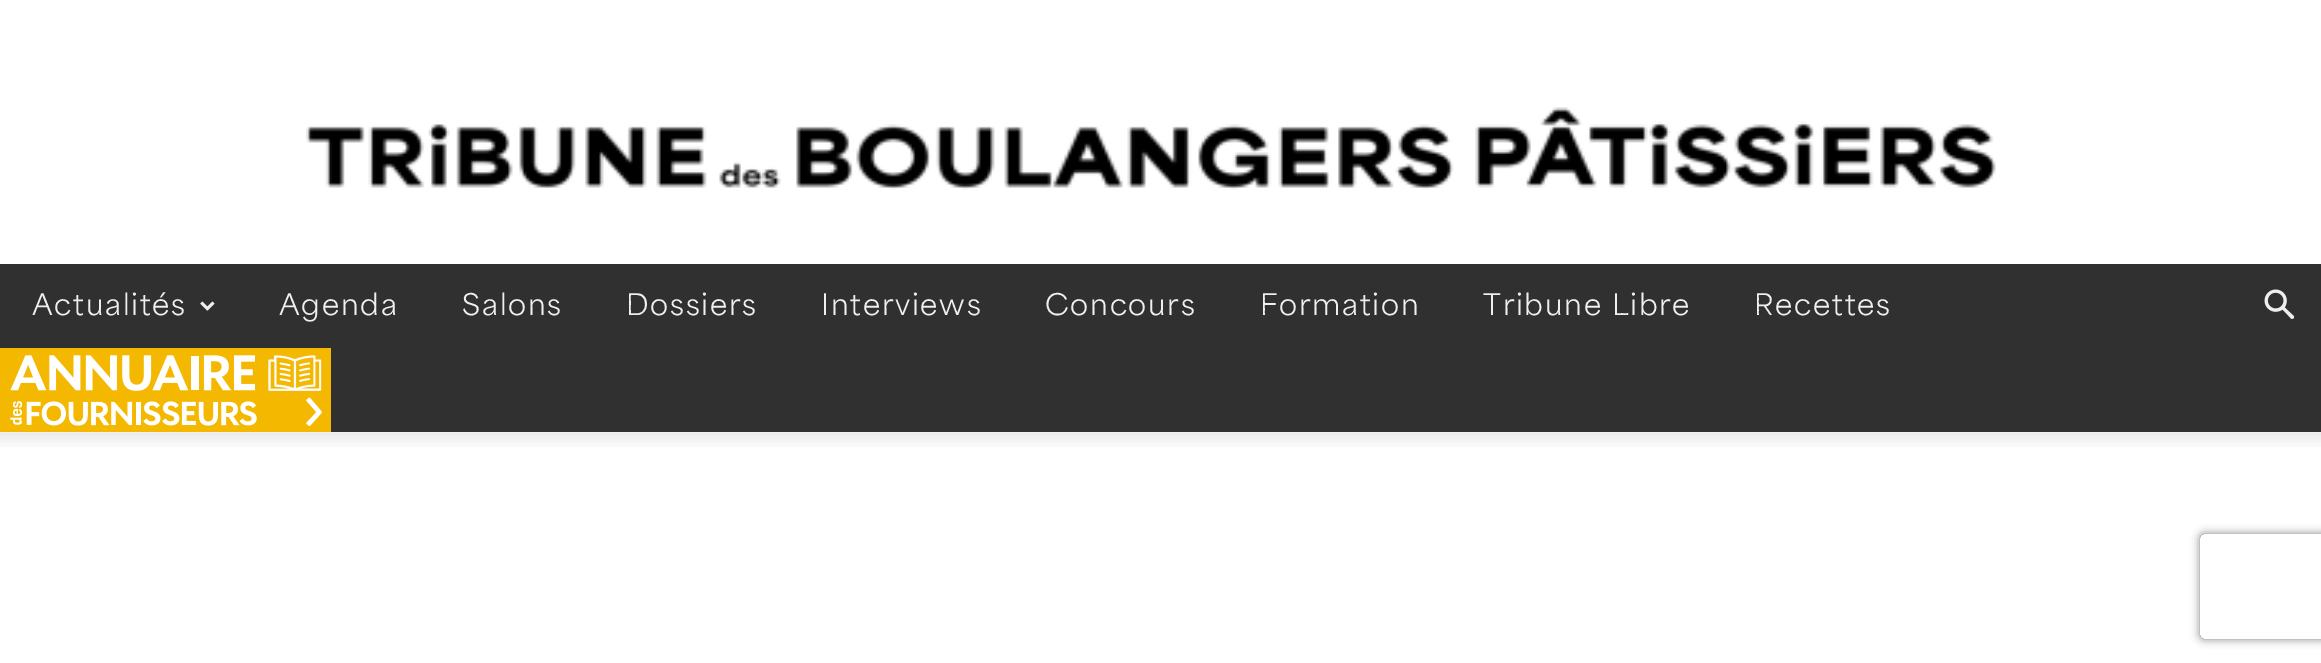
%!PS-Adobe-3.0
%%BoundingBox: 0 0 2321 663
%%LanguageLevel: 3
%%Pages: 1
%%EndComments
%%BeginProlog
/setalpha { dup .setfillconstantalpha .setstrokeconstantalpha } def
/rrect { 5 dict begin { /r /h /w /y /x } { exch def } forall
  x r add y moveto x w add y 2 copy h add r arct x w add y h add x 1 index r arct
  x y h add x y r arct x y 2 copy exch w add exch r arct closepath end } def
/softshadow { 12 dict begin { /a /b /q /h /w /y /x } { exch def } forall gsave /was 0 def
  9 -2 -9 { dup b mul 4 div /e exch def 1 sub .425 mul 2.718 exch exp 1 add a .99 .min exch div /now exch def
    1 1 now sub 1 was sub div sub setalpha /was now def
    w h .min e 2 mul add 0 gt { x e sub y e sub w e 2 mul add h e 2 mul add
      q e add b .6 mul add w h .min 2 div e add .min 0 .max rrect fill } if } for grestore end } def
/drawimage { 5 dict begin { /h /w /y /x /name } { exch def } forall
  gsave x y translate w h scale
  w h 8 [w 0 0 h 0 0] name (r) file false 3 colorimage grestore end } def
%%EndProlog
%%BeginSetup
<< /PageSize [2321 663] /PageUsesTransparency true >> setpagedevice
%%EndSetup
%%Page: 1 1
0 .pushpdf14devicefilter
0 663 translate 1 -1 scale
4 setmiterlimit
1 setgray
0 0 2321 663 rectfill
(images/1.raw) 306 107 1690 83 drawimage
0.188 setgray
0 264 2321 168 rectfill
(images/2.raw) 200 301 15 10 drawimage
(images/3.raw) 0 348 331 84 drawimage
(images/4.raw) 2264 289 31 30 drawimage
(images/5.raw) 0 432 2321 15 drawimage
gsave
newpath 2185 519 moveto 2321 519 lineto 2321 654 lineto 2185 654 lineto closepath 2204 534 moveto 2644 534 lineto 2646 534 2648 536 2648 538 curveto 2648 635 lineto 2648 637 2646 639 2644 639 curveto 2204 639 lineto 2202 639 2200 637 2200 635 curveto 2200 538 lineto 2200 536 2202 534 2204 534 curveto closepath eoclip newpath
0.502 setgray
2200 534 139 105 4 4.5 1 softshadow
grestore
/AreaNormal-Regular [28 0 0 -28 0 0] selectfont
0.937 setgray
32 315 moveto 1.75 0 (Actualités) ashow
279 315 moveto 1.75 0 (Agenda) ashow
462 315 moveto 1.75 0 (Salons) ashow
626 315 moveto 1.75 0 (Dossiers) ashow
821 315 moveto 1.75 0 (Interviews) ashow
1045 315 moveto 1.75 0 (Concours) ashow
1260 315 moveto 1.75 0 (Formation) ashow
1483 315 moveto 1.75 0 (Tribune Libre) ashow
1754 315 moveto 1.75 0 (Recettes) ashow
.poppdf14devicefilter showpage
%%EOF
